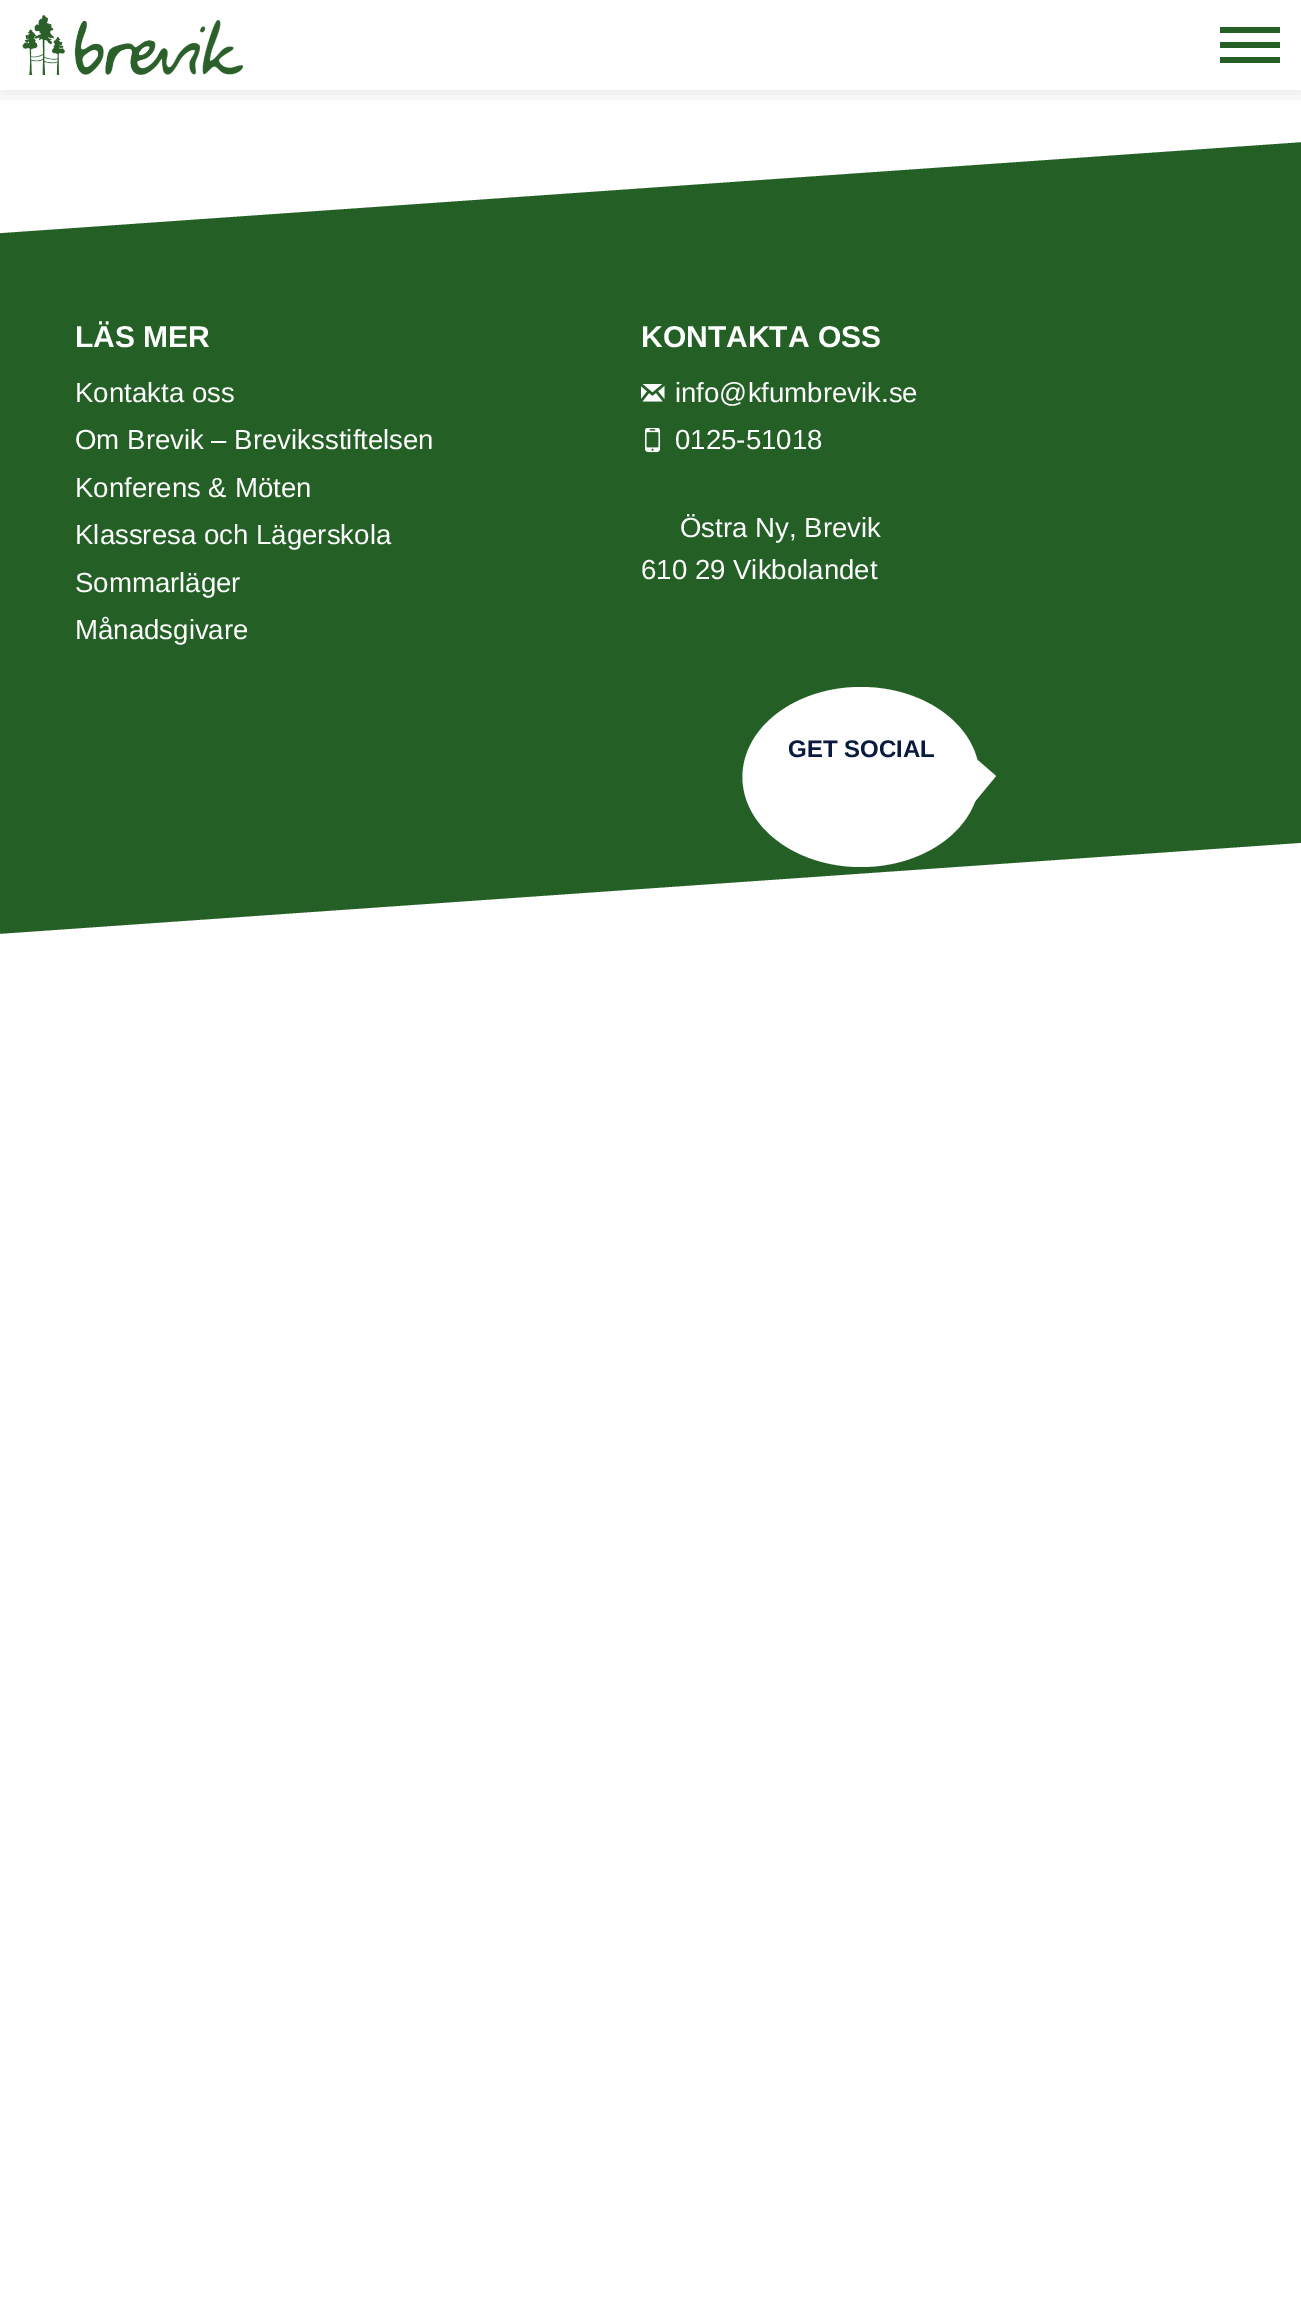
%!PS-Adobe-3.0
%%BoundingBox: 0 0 1301 2324
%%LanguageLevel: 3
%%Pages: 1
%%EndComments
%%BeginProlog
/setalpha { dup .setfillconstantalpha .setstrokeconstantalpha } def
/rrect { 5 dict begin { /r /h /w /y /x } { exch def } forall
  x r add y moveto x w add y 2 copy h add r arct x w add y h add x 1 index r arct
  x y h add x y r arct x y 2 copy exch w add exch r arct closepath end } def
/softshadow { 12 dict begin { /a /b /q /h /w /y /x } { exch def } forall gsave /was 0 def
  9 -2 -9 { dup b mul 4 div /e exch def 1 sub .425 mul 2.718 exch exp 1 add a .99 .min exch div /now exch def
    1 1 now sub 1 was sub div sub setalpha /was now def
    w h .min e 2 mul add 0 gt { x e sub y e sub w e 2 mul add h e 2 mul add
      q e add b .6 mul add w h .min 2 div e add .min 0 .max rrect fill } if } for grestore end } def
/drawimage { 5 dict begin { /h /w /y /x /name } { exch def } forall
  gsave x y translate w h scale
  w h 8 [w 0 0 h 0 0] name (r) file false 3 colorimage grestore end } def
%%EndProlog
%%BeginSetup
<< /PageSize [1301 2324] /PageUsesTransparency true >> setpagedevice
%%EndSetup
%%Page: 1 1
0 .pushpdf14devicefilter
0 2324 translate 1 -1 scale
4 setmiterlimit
1 setgray
0 0 1301 2324 rectfill
gsave
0 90 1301 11 rectclip
0 setgray
0 3 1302 90 0 9 0.1 softshadow
grestore
(images/1.raw) 22 15 222 60 drawimage
0.141 0.376 0.149 setrgbcolor
1220 27 60 6 rectfill
1220 42 60 6 rectfill
1220 57 60 6 rectfill
newpath -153 244 moveto 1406 135 lineto 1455 832 lineto -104 941 lineto closepath fill
(images/2.raw) 641 384 24 18 drawimage
(images/3.raw) 645 428 16 25 drawimage
1 setgray
newpath 861 687 moveto 926.5 687 979.5 727.5 979.5 777 curveto 979.5 826.5 926.5 867 861 867 curveto 795.5 867 742.5 826.5 742.5 777 curveto 742.5 727.5 795.5 687 861 687 curveto closepath fill
/LiberationSans-Bold [30 0 0 -30 0 0] selectfont
75 347 moveto (LÄS MER) show
/LiberationSans-Regular [27.6 0 0 -27.6 0 0] selectfont
75 402 moveto (Kontakta oss) show
75 449 moveto (Om Brevik – Breviksstiftelsen) show
75 497 moveto (Konferens & Möten) show
75 544 moveto (Klassresa och Lägerskola) show
75 592 moveto (Sommarläger) show
75 639 moveto (Månadsgivare) show
/LiberationSans-Bold [30 0 0 -30 0 0] selectfont
641 347 moveto (KONTAKTA OSS) show
/LiberationSans-Regular [27.6 0 0 -27.6 0 0] selectfont
675 402 moveto (info@kfumbrevik.se) show
675 449 moveto (0125-51018) show
680 537 moveto (Östra Ny, Brevik) show
641 579 moveto (610 29 Vikbolandet) show
/LiberationSans-Bold [24 0 0 -24 0 0] selectfont
0.039 0.106 0.247 setrgbcolor
788 757 moveto (GET SOCIAL) show
1 setgray
newpath 912 783 moveto 951 737 lineto 996 776 lineto 958 822 lineto closepath fill
.poppdf14devicefilter showpage
%%EOF
